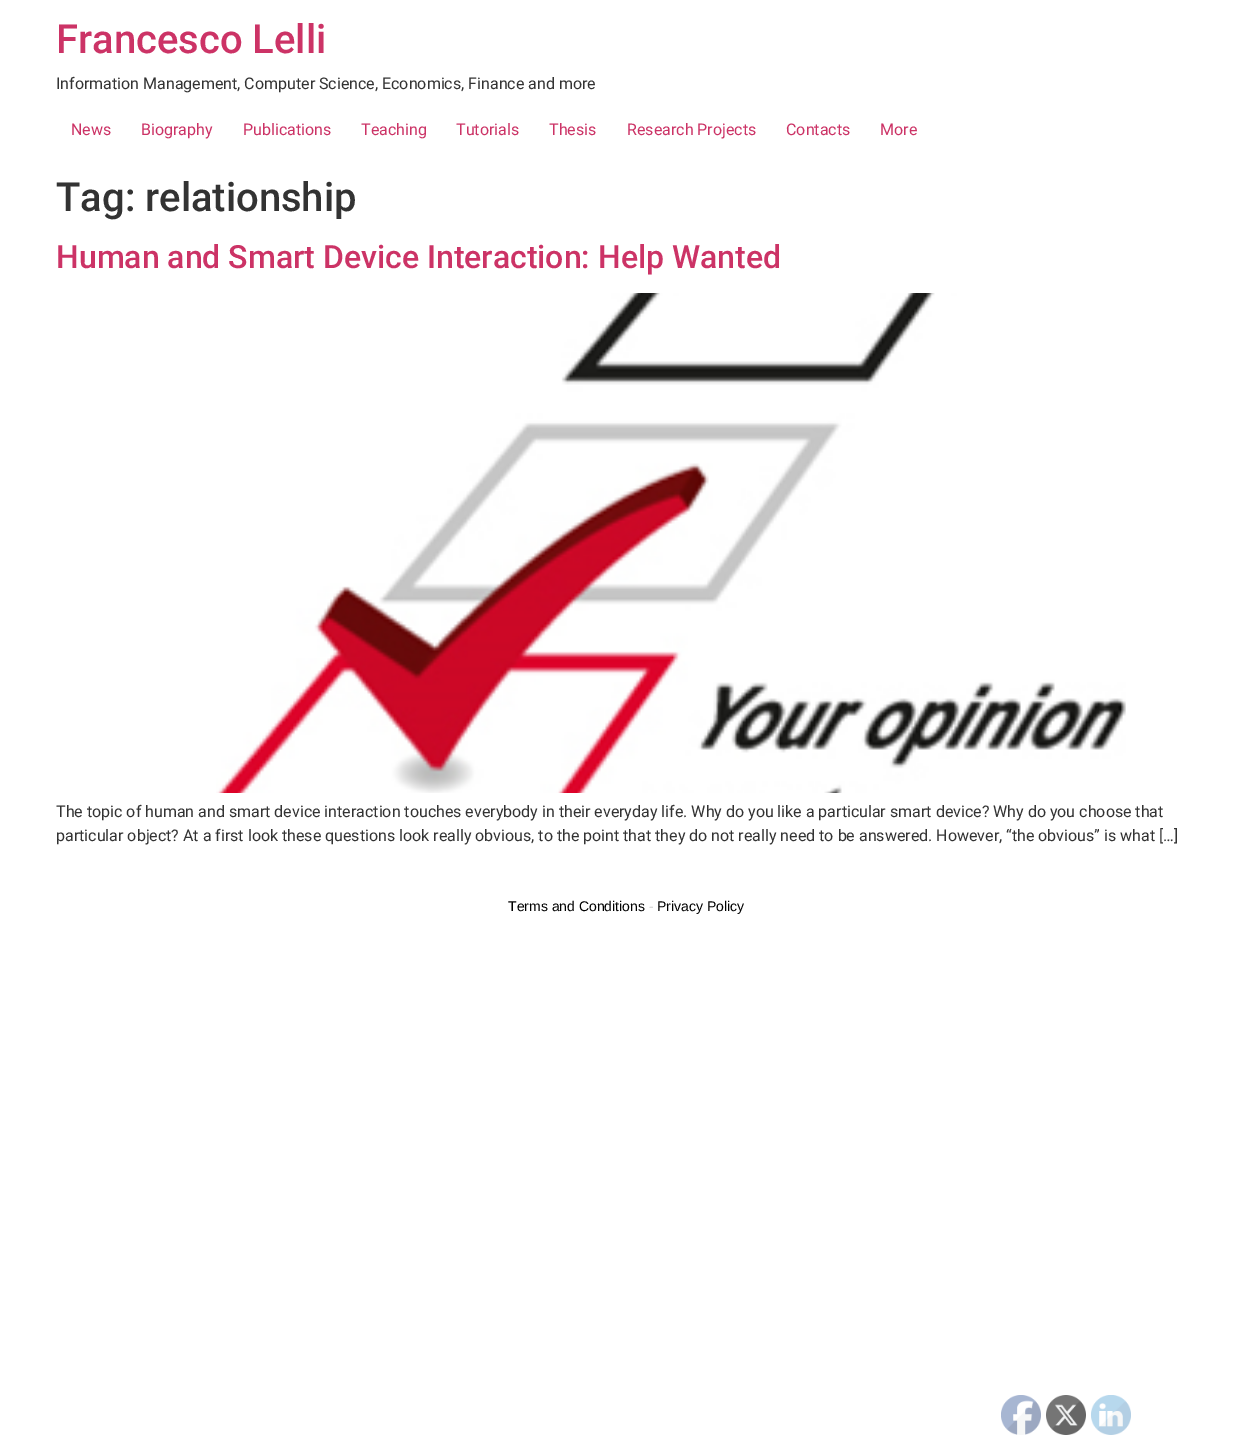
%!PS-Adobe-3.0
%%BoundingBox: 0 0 1252 1443
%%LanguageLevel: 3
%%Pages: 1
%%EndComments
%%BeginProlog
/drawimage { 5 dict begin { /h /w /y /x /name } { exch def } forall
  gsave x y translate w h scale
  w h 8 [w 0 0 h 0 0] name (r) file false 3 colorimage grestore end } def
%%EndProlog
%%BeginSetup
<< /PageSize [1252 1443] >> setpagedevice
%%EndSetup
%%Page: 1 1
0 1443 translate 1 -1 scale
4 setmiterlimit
1 setgray
0 0 1252 1443 rectfill
(images/1.raw) 216 293 910 500 drawimage
(images/2.raw) 1001 1395 40 40 drawimage
(images/3.raw) 1046 1395 40 40 drawimage
(images/4.raw) 1091 1395 40 40 drawimage
/Roboto-Medium [40 0 0 -40 0 0] selectfont
0.8 0.2 0.4 setrgbcolor
56 53 moveto (Francesco Lelli) show
/Roboto-Regular [16 0 0 -16 0 0] selectfont
0.2 setgray
56 89 moveto (Information Management, Computer Science, Economics, Finance and more) show
0.8 0.2 0.4 setrgbcolor
71 135 moveto (News) show
141 135 moveto (Biography) show
243 135 moveto (Publications) show
361 135 moveto (Teaching) show
456 135 moveto (Tutorials) show
549 135 moveto (Thesis) show
627 135 moveto (Research Projects) show
786 135 moveto (Contacts) show
880 135 moveto (More) show
/Roboto-Medium [40 0 0 -40 0 0] selectfont
0.2 setgray
56 211 moveto (Tag: relationship) show
/Roboto-Medium [32 0 0 -32 0 0] selectfont
0.8 0.2 0.4 setrgbcolor
56 268 moveto (Human and Smart Device Interaction: Help Wanted) show
/Roboto-Regular [16 0 0 -16 0 0] selectfont
0.2 setgray
56 817 moveto (The topic of human and smart device interaction touches everybody in their everyday life. Why do you like a particular smart device? Why do you choose that) show
56 841 moveto (particular object? At a first look these questions look really obvious, to the point that they do not really need to be answered. However, “the obvious” is what […]) show
/LiberationSans-Regular [14 0 0 -14 0 0] selectfont
0 setgray
508 911 moveto (Terms and Conditions) show
0.8 setgray
649 911 moveto (-) show
0 setgray
657 911 moveto (Privacy Policy) show
showpage
%%EOF
